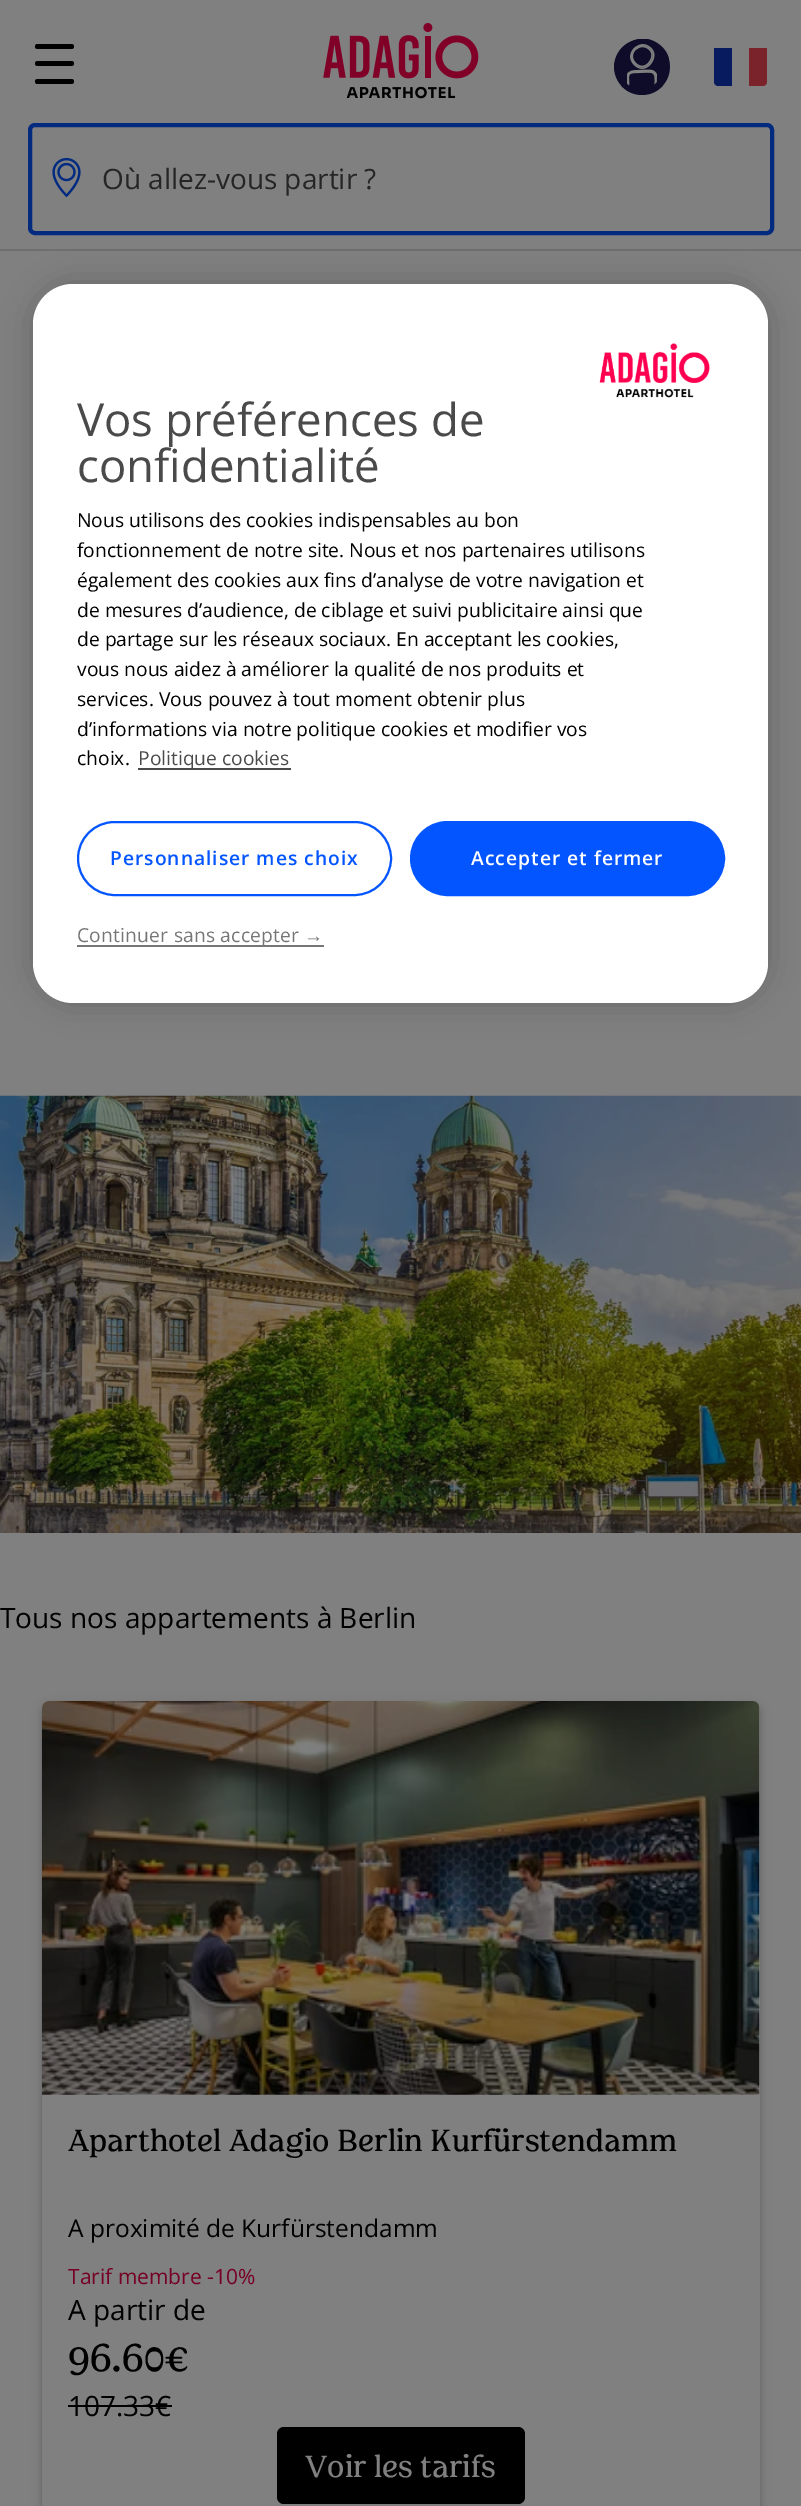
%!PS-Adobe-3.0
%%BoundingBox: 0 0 801 2506
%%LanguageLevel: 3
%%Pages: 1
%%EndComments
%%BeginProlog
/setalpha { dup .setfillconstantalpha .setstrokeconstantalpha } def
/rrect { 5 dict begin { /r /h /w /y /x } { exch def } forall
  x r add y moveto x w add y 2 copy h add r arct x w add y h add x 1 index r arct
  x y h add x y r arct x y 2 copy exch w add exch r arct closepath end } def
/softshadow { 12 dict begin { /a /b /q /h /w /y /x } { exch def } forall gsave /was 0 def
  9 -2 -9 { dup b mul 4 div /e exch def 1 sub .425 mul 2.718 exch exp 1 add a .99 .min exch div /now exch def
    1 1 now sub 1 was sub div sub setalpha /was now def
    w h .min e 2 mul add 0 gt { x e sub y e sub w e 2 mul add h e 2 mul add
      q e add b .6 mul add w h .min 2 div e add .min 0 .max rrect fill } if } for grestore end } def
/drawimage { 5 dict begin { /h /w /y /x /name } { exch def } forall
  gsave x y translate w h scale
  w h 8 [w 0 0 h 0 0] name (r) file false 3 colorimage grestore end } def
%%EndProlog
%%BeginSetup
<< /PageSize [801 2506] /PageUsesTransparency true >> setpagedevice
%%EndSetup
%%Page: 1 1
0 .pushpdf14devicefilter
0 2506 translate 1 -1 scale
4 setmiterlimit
0.502 setgray
0 0 801 2506 rectfill
0.435 setgray
0 249 801 2 rectfill
0 setgray
35 44 39 5 2.5 rrect fill
35 61 39 5 2.5 rrect fill
35 79 39 5 2.5 rrect fill
(images/1.raw) 323 23 156 76 drawimage
0.059 0.047 0.161 setrgbcolor
newpath 642 67 28 0 360 arc closepath fill
(images/2.raw) 614 39 56 47 drawimage
gsave
714 47 53 39 4 rrect clip newpath
0.478 0.137 0.165 setrgbcolor
newpath 739 48 moveto 767 48 lineto 767 82 lineto 767 84 765 86 763 86 curveto 739 86 lineto closepath fill
0.031 0.106 0.369 setrgbcolor
newpath 714 48 moveto 732 48 lineto 732 86 lineto 718 86 lineto 716 86 714 84 714 82 curveto closepath fill
grestore
0.502 setgray
739 48 10 38 rectfill
0.008 0.169 0.502 setrgbcolor
4 setlinewidth
30 125 742 108 5 rrect stroke
(images/3.raw) 52 157 29 41 drawimage
(images/4.raw) 0 1095 801 438 drawimage
0 setgray
42 1705 718 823 7 5 0.25 softshadow
0.502 setgray
42 1701 718 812 7 rrect fill
(images/5.raw) 42 1701 718 394 drawimage
0 setgray
68 2405 104 2 rectfill
277 2427 248 77 7 rrect fill
33 284 735 719 40 16 0.2 softshadow
1 setgray
33 284 735 719 40 rrect fill
(images/6.raw) 599 343 111 55 drawimage
0.29 setgray
138 768 153 2 rectfill
0.012 0.333 1 setrgbcolor
2 setlinewidth
78 822 313 73 36.5 rrect stroke
411 822 313 73 36.5 rrect gsave fill grestore
stroke
0.463 setgray
77 945 247 2 rectfill
/OpenSans-Regular [28 0 0 -28 0 0] selectfont
0.145 setgray
102 189 moveto (Où allez-vous partir ?) show
0 setgray
0 1628 moveto (Tous nos appartements à Berlin) show
/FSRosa-Regular [35 0 0 -35 0 0] selectfont
68 2151 moveto (Aparthotel Adagio Berlin Kurfürstendamm) show
/OpenSans-Regular [24.5 0 0 -24.5 0 0] selectfont
68 2237 moveto (A proximité de Kurfürstendamm) show
/OpenSans-Regular [21 0 0 -21 0 0] selectfont
0.463 0 0.145 setrgbcolor
68 2284 moveto (Tarif membre -10%) show
/OpenSans-Regular [28 0 0 -28 0 0] selectfont
0 setgray
68 2320 moveto (A partir de) show
/FSRosa-Regular [44 0 0 -44 0 0] selectfont
68 2371 moveto (96.60€) show
/OpenSans-Regular [28 0 0 -28 0 0] selectfont
68 2416 moveto (107.33€) show
/FSRosa-Regular [35 0 0 -35 0 0] selectfont
0.502 setgray
305 2477 moveto (Voir les tarifs) show
/OpenSans-Regular [45.5 0 0 -45.5 0 0] selectfont
0.29 setgray
77 436 moveto (Vos préférences de) show
77 482 moveto (confidentialité) show
/OpenSans-Regular [19.25 0 0 -19.25 0 0] selectfont
0 setgray
77 527 moveto (Nous utilisons des cookies indispensables au bon) show
77 557 moveto (fonctionnement de notre site. Nous et nos partenaires utilisons) show
77 587 moveto (également des cookies aux fins d’analyse de votre navigation et) show
77 617 moveto (de mesures d’audience, de ciblage et suivi publicitaire ainsi que) show
77 646 moveto (de partage sur les réseaux sociaux. En acceptant les cookies,) show
77 676 moveto (vous nous aidez à améliorer la qualité de nos produits et) show
77 706 moveto (services. Vous pouvez à tout moment obtenir plus) show
77 736 moveto (d’informations via notre politique cookies et modifier vos) show
77 765 moveto (choix.) show
0.29 setgray
138 765 moveto (Politique cookies) show
/OpenSans-SemiBold [19.25 0 0 -19.25 0 0] selectfont
0.012 0.333 1 setrgbcolor
110 865 moveto 1 0 (Personnaliser mes choix) ashow
1 setgray
471 865 moveto 1 0 (Accepter et fermer) ashow
/OpenSans-Regular [19.25 0 0 -19.25 0 0] selectfont
0.463 setgray
77 942 moveto 0.2 0 (Continuer sans accepter) ashow
/LiberationSerif-Regular [19.25 0 0 -19.25 0 0] selectfont
304 942 moveto 0.2 0 (→) ashow
.poppdf14devicefilter showpage
%%EOF
